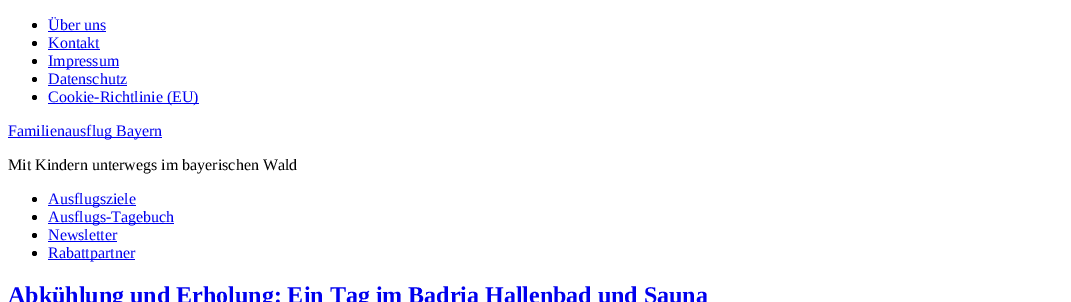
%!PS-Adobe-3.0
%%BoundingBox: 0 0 1071 302
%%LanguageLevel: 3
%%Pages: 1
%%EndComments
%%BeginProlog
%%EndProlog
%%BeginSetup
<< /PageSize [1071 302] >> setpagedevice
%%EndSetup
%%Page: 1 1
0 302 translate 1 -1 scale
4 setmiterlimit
1 setgray
0 0 1071 302 rectfill
0 setgray
newpath 34.5 25.5 2.5 0 360 arc closepath fill
0 0 0.933 setrgbcolor
48 31 58 1 rectfill
0 setgray
newpath 34.5 43.5 2.5 0 360 arc closepath fill
0 0 0.933 setrgbcolor
48 49 52 1 rectfill
0 setgray
newpath 34.5 61.5 2.5 0 360 arc closepath fill
0 0 0.933 setrgbcolor
48 67 71 1 rectfill
0 setgray
newpath 34.5 79.5 2.5 0 360 arc closepath fill
0 0 0.933 setrgbcolor
48 85 79 1 rectfill
0 setgray
newpath 34.5 97.5 2.5 0 360 arc closepath fill
0 0 0.933 setrgbcolor
48 103 151 1 rectfill
8 137 154 1 rectfill
0 setgray
newpath 34.5 199.5 2.5 0 360 arc closepath fill
0 0 0.933 setrgbcolor
48 205 88 1 rectfill
0 setgray
newpath 34.5 217.5 2.5 0 360 arc closepath fill
0 0 0.933 setrgbcolor
48 223 126 1 rectfill
0 setgray
newpath 34.5 235.5 2.5 0 360 arc closepath fill
0 0 0.933 setrgbcolor
48 241 69 1 rectfill
0 setgray
newpath 34.5 253.5 2.5 0 360 arc closepath fill
0 0 0.933 setrgbcolor
48 259 87 1 rectfill
/LiberationSerif-Regular [16 0 0 -16 0 0] selectfont
48 30 moveto (Über uns) show
48 48 moveto (Kontakt) show
48 66 moveto (Impressum) show
48 84 moveto (Datenschutz) show
48 102 moveto (Cookie-Richtlinie \(EU\)) show
8 136 moveto (Familienausflug Bayern) show
0 setgray
8 170 moveto (Mit Kindern unterwegs im bayerischen Wald) show
0 0 0.933 setrgbcolor
48 204 moveto (Ausflugsziele) show
48 222 moveto (Ausflugs-Tagebuch) show
48 240 moveto (Newsletter) show
48 258 moveto (Rabattpartner) show
/LiberationSerif-Bold [24 0 0 -24 0 0] selectfont
8 303 moveto (Abkühlung und Erholung: Ein Tag im Badria Hallenbad und Sauna) show
showpage
%%EOF
